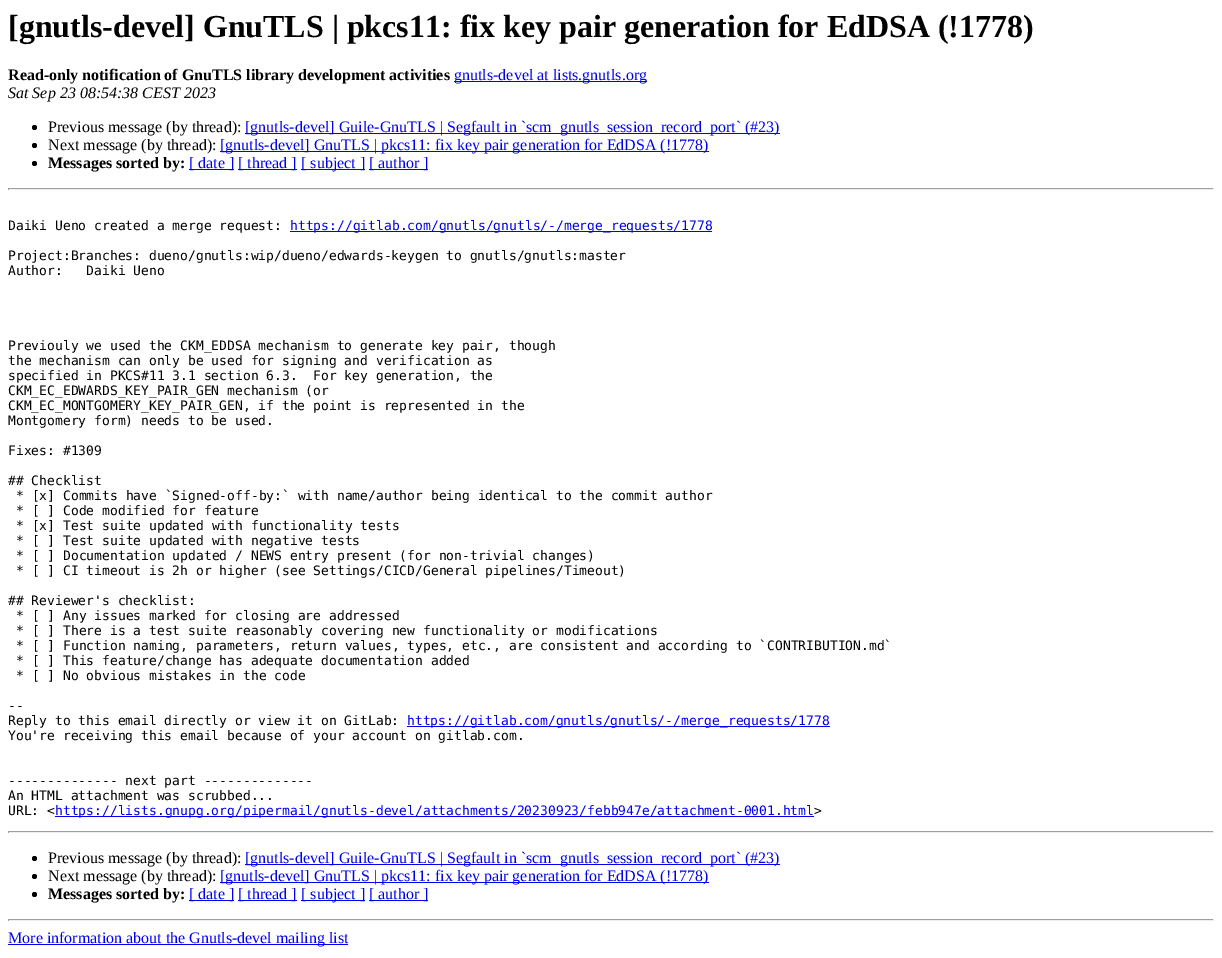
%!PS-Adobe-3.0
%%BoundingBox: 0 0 1222 958
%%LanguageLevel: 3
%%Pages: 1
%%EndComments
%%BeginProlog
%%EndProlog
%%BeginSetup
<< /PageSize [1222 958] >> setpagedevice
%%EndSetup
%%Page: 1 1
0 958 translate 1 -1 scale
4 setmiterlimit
1 setgray
0 0 1222 958 rectfill
0 0 0.933 setrgbcolor
454 81 193 1 rectfill
0 setgray
newpath 34.5 127.5 2.5 0 360 arc closepath fill
0 0 0.933 setrgbcolor
245 133 535 1 rectfill
0 setgray
newpath 34.5 145.5 2.5 0 360 arc closepath fill
0 0 0.933 setrgbcolor
220 151 489 1 rectfill
0 setgray
newpath 34.5 163.5 2.5 0 360 arc closepath fill
0 0 0.933 setrgbcolor
189 169 45 1 rectfill
238 169 59 1 rectfill
301 169 64 1 rectfill
369 169 59 1 rectfill
0.624 setgray
8 188 1206 1 rectfill
0.933 setgray
1213 188 1 2 rectfill
8 189 1206 1 rectfill
0.624 setgray
8 188 1 2 rectfill
0 0 0.933 setrgbcolor
290 231 422 1 rectfill
407 726 423 1 rectfill
55 816 759 1 rectfill
0.624 setgray
8 831 1206 1 rectfill
0.933 setgray
1213 831 1 2 rectfill
8 832 1206 1 rectfill
0.624 setgray
8 831 1 2 rectfill
0 setgray
newpath 34.5 858.5 2.5 0 360 arc closepath fill
0 0 0.933 setrgbcolor
245 864 535 1 rectfill
0 setgray
newpath 34.5 876.5 2.5 0 360 arc closepath fill
0 0 0.933 setrgbcolor
220 882 489 1 rectfill
0 setgray
newpath 34.5 894.5 2.5 0 360 arc closepath fill
0 0 0.933 setrgbcolor
189 900 45 1 rectfill
238 900 59 1 rectfill
301 900 64 1 rectfill
369 900 59 1 rectfill
0.624 setgray
8 919 1206 1 rectfill
0.933 setgray
1213 919 1 2 rectfill
8 920 1206 1 rectfill
0.624 setgray
8 919 1 2 rectfill
0 0 0.933 setrgbcolor
8 944 340 1 rectfill
/LiberationSerif-Bold [32 0 0 -32 0 0] selectfont
0 setgray
8 37 moveto ([gnutls-devel] GnuTLS | pkcs11: fix key pair generation for EdDSA \(!1778\)) show
/LiberationSerif-Bold [16 0 0 -16 0 0] selectfont
8 80 moveto (Read-only notification of GnuTLS library development activities) show
/LiberationSerif-Regular [16 0 0 -16 0 0] selectfont
0 0 0.933 setrgbcolor
454 80 moveto (gnutls-devel at lists.gnutls.org) show
/LiberationSerif-Italic [16 0 0 -16 0 0] selectfont
0 setgray
8 98 moveto (Sat Sep 23 08:54:38 CEST 2023) show
/LiberationSerif-Regular [16 0 0 -16 0 0] selectfont
48 132 moveto (Previous message \(by thread\):) show
0 0 0.933 setrgbcolor
245 132 moveto ([gnutls-devel] Guile-GnuTLS | Segfault in `scm_gnutls_session_record_port` \(#23\)) show
0 setgray
48 150 moveto (Next message \(by thread\):) show
0 0 0.933 setrgbcolor
220 150 moveto ([gnutls-devel] GnuTLS | pkcs11: fix key pair generation for EdDSA \(!1778\)) show
/LiberationSerif-Bold [16 0 0 -16 0 0] selectfont
0 setgray
48 168 moveto (Messages sorted by:) show
/LiberationSerif-Regular [16 0 0 -16 0 0] selectfont
0 0 0.933 setrgbcolor
189 168 moveto ([ date ]) show
238 168 moveto ([ thread ]) show
301 168 moveto ([ subject ]) show
369 168 moveto ([ author ]) show
/DejaVuSansMono-Regular [13 0 0 -13 0 0] selectfont
0 setgray
8 230 moveto (Daiki Ueno created a merge request:) show
0 0 0.933 setrgbcolor
290 230 moveto (https://gitlab.com/gnutls/gnutls/-/merge_requests/1778) show
0 setgray
8 260 moveto (Project:Branches: dueno/gnutls:wip/dueno/edwards-keygen to gnutls/gnutls:master) show
8 275 moveto (Author:   Daiki Ueno) show
8 350 moveto (Previouly we used the CKM_EDDSA mechanism to generate key pair, though) show
8 365 moveto (the mechanism can only be used for signing and verification as) show
8 380 moveto (specified in PKCS#11 3.1 section 6.3.  For key generation, the) show
8 395 moveto (CKM_EC_EDWARDS_KEY_PAIR_GEN mechanism \(or) show
8 410 moveto (CKM_EC_MONTGOMERY_KEY_PAIR_GEN, if the point is represented in the) show
8 425 moveto (Montgomery form\) needs to be used.) show
8 455 moveto (Fixes: #1309) show
8 485 moveto (## Checklist) show
16 500 moveto (* [x] Commits have `Signed-off-by:` with name/author being identical to the commit author) show
16 515 moveto (* [ ] Code modified for feature) show
16 530 moveto (* [x] Test suite updated with functionality tests) show
16 545 moveto (* [ ] Test suite updated with negative tests) show
16 560 moveto (* [ ] Documentation updated / NEWS entry present \(for non-trivial changes\)) show
16 575 moveto (* [ ] CI timeout is 2h or higher \(see Settings/CICD/General pipelines/Timeout\)) show
8 605 moveto (## Reviewer's checklist:) show
16 620 moveto (* [ ] Any issues marked for closing are addressed) show
16 635 moveto (* [ ] There is a test suite reasonably covering new functionality or modifications) show
16 650 moveto (* [ ] Function naming, parameters, return values, types, etc., are consistent and according to `CONTRIBUTION.md`) show
16 665 moveto (* [ ] This feature/change has adequate documentation added) show
16 680 moveto (* [ ] No obvious mistakes in the code) show
8 710 moveto (--) show
8 725 moveto (Reply to this email directly or view it on GitLab:) show
0 0 0.933 setrgbcolor
407 725 moveto (https://gitlab.com/gnutls/gnutls/-/merge_requests/1778) show
0 setgray
8 740 moveto (You're receiving this email because of your account on gitlab.com.) show
8 785 moveto (-------------- next part --------------) show
8 800 moveto (An HTML attachment was scrubbed...) show
8 815 moveto (URL: <) show
0 0 0.933 setrgbcolor
55 815 moveto (https://lists.gnupg.org/pipermail/gnutls-devel/attachments/20230923/febb947e/attachment-0001.html) show
0 setgray
814 815 moveto (>) show
/LiberationSerif-Regular [16 0 0 -16 0 0] selectfont
48 863 moveto (Previous message \(by thread\):) show
0 0 0.933 setrgbcolor
245 863 moveto ([gnutls-devel] Guile-GnuTLS | Segfault in `scm_gnutls_session_record_port` \(#23\)) show
0 setgray
48 881 moveto (Next message \(by thread\):) show
0 0 0.933 setrgbcolor
220 881 moveto ([gnutls-devel] GnuTLS | pkcs11: fix key pair generation for EdDSA \(!1778\)) show
/LiberationSerif-Bold [16 0 0 -16 0 0] selectfont
0 setgray
48 899 moveto (Messages sorted by:) show
/LiberationSerif-Regular [16 0 0 -16 0 0] selectfont
0 0 0.933 setrgbcolor
189 899 moveto ([ date ]) show
238 899 moveto ([ thread ]) show
301 899 moveto ([ subject ]) show
369 899 moveto ([ author ]) show
8 943 moveto (More information about the Gnutls-devel mailing list) show
showpage
%%EOF
